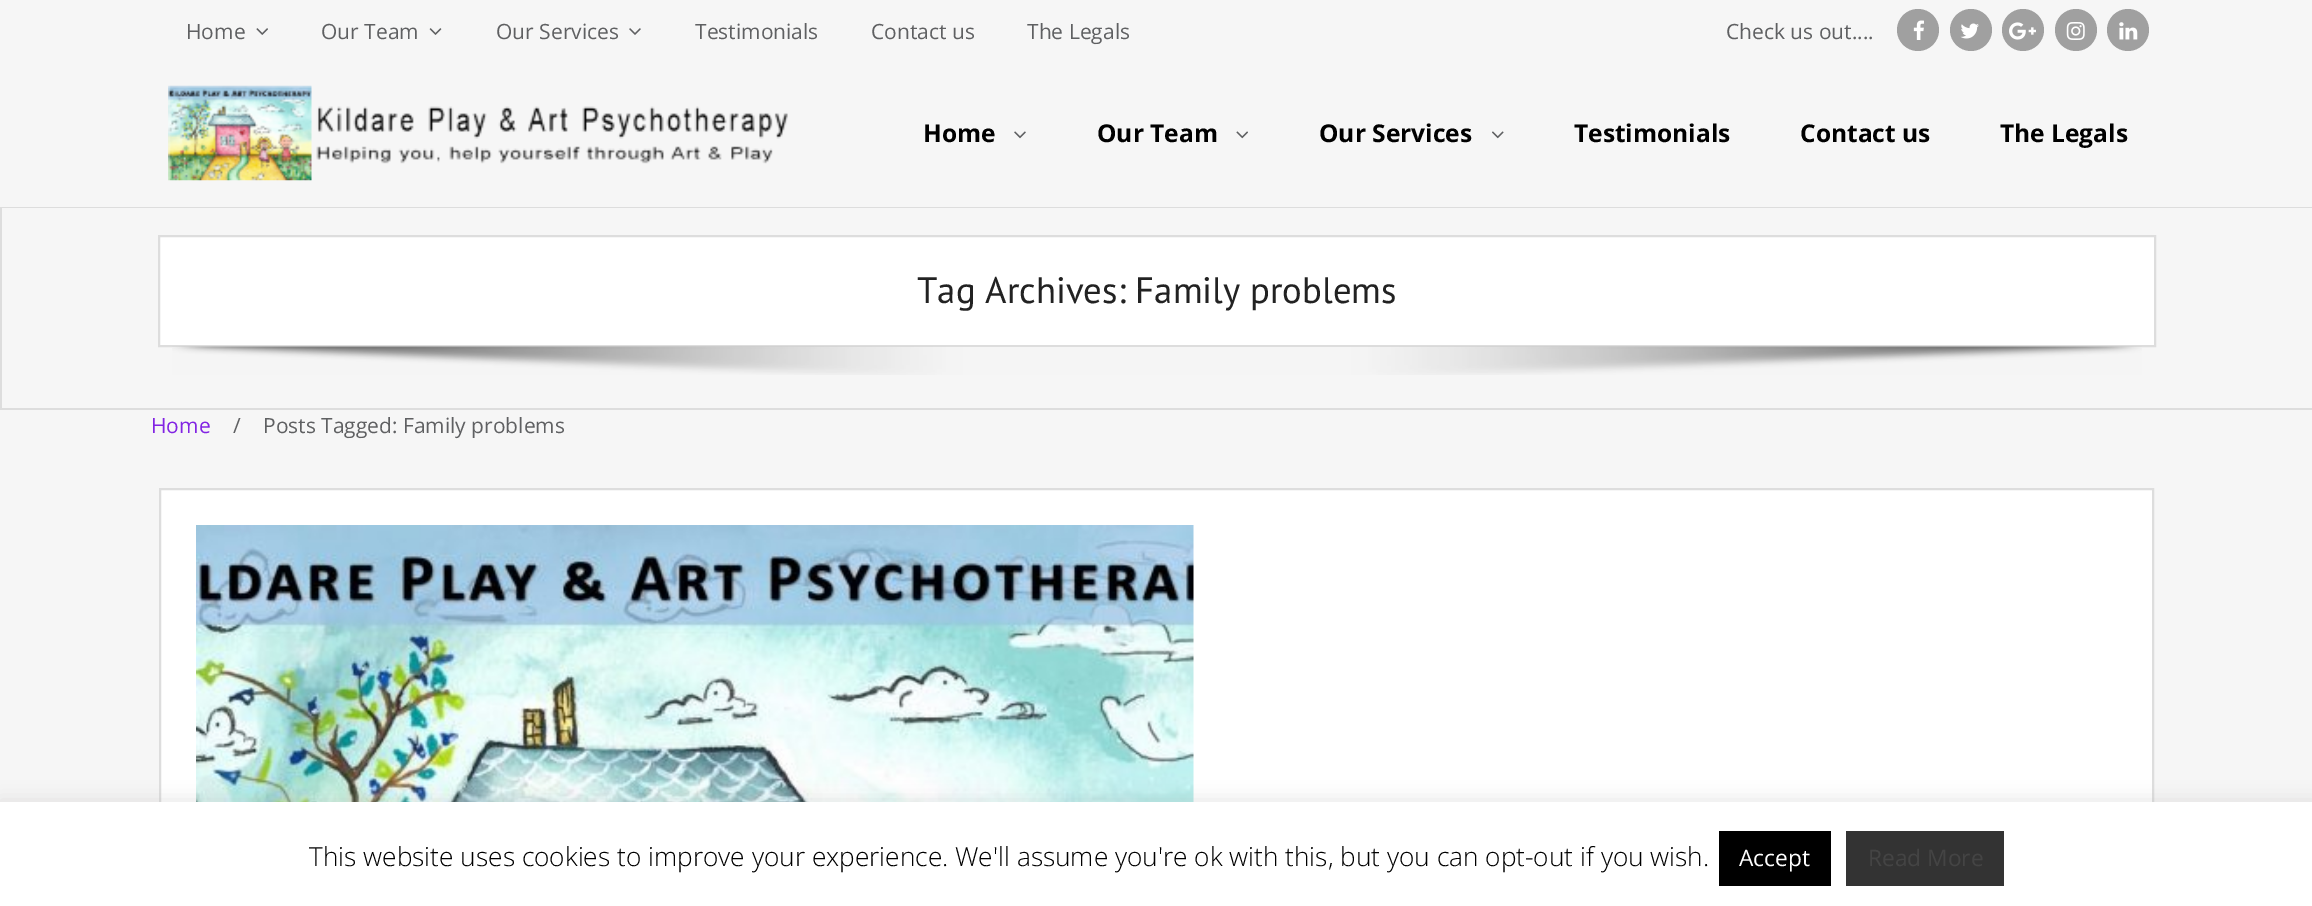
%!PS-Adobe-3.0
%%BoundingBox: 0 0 2312 906
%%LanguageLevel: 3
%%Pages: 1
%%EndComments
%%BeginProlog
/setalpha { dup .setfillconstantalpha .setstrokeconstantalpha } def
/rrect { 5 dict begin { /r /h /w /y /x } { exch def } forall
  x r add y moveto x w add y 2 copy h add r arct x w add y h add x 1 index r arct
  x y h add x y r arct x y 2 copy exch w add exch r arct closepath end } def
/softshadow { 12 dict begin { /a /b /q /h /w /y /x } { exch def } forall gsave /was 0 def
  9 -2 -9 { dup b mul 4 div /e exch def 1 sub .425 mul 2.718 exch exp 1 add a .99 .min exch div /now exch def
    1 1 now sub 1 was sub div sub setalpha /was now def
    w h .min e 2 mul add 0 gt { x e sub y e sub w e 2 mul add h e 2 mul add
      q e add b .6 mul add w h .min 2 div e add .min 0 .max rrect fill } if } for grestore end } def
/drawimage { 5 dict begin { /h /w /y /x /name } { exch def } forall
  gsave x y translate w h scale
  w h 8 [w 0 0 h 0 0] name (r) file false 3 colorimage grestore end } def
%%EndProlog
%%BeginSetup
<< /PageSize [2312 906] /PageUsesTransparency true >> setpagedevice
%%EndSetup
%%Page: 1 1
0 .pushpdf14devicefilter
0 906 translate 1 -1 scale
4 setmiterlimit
0.965 setgray
0 0 2312 906 rectfill
0.867 setgray
0 207 2312 1 rectfill
(images/1.raw) 256 28 12 7 drawimage
(images/2.raw) 429 28 13 7 drawimage
(images/3.raw) 629 28 12 7 drawimage
0.627 setgray
newpath 1918 30 21 0 360 arc closepath fill
(images/4.raw) 1913 20 11 20 drawimage
newpath 1971 30 21 0 360 arc closepath fill
(images/5.raw) 1960 23 19 16 drawimage
newpath 2023 30 21 0 360 arc closepath fill
(images/6.raw) 2009 22 27 18 drawimage
newpath 2076 30 21 0 360 arc closepath fill
(images/7.raw) 2066 22 19 18 drawimage
newpath 2128 30 21 0 360 arc closepath fill
(images/8.raw) 2119 22 19 18 drawimage
(images/9.raw) 168 85 620 96 drawimage
(images/10.raw) 1014 131 12 8 drawimage
(images/11.raw) 1236 131 12 8 drawimage
(images/12.raw) 1492 131 12 8 drawimage
0.867 setgray
0 408 2312 2 rectfill
0 208 2 202 rectfill
1 setgray
newpath 159 236 moveto 2155 236 lineto 2155 346 lineto 159 346 lineto closepath gsave fill grestore
0.867 setgray
2 setlinewidth
stroke
(images/13.raw) 172 346 1970 29 drawimage
1 setgray
161 490 1991 312 rectfill
0.867 setgray
160 489 1993 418 rectstroke
(images/14.raw) 196 525 998 277 drawimage
0.675 0.671 0.671 setrgbcolor
0 800 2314 105 0 9 0.3 softshadow
1 setgray
0 802 2312 104 rectfill
0 setgray
1719 831 112 55 rectfill
0.2 setgray
1846 831 158 55 rectfill
/OpenSans-Regular [21 0 0 -21 0 0] selectfont
0.373 0.376 0.384 setrgbcolor
186 39 moveto (Home) show
321 39 moveto (Our Team) show
496 39 moveto (Our Services) show
695 39 moveto (Testimonials) show
871 39 moveto (Contact us) show
1027 39 moveto (The Legals) show
1726 39 moveto (Check us out....) show
/OpenSans-Bold [24.5 0 0 -24.5 0 0] selectfont
0 setgray
923 142 moveto (Home) show
1097 142 moveto (Our Team) show
1319 142 moveto (Our Services) show
1574 142 moveto (Testimonials) show
1800 142 moveto (Contact us) show
2000 142 moveto (The Legals) show
/PTSans-Regular [36.75 0 0 -36.75 0 0] selectfont
0.133 setgray
917 303 moveto (Tag Archives: Family problems) show
/OpenSans-Regular [21 0 0 -21 0 0] selectfont
0.51 0.141 0.89 setrgbcolor
151 433 moveto (Home) show
0.373 0.376 0.384 setrgbcolor
233 433 moveto (/) show
263 433 moveto (Posts Tagged: Family problems) show
/OpenSans-Light [26.25 0 0 -26.25 0 0] selectfont
0 setgray
309 866 moveto (This website uses cookies to improve your experience. We'll assume you're ok with this, but you can opt-out if you wish.) show
/OpenSans-Regular [22.75 0 0 -22.75 0 0] selectfont
1 setgray
1739 866 moveto (Accept) show
0.267 setgray
1868 866 moveto (Read More) show
.poppdf14devicefilter showpage
%%EOF
